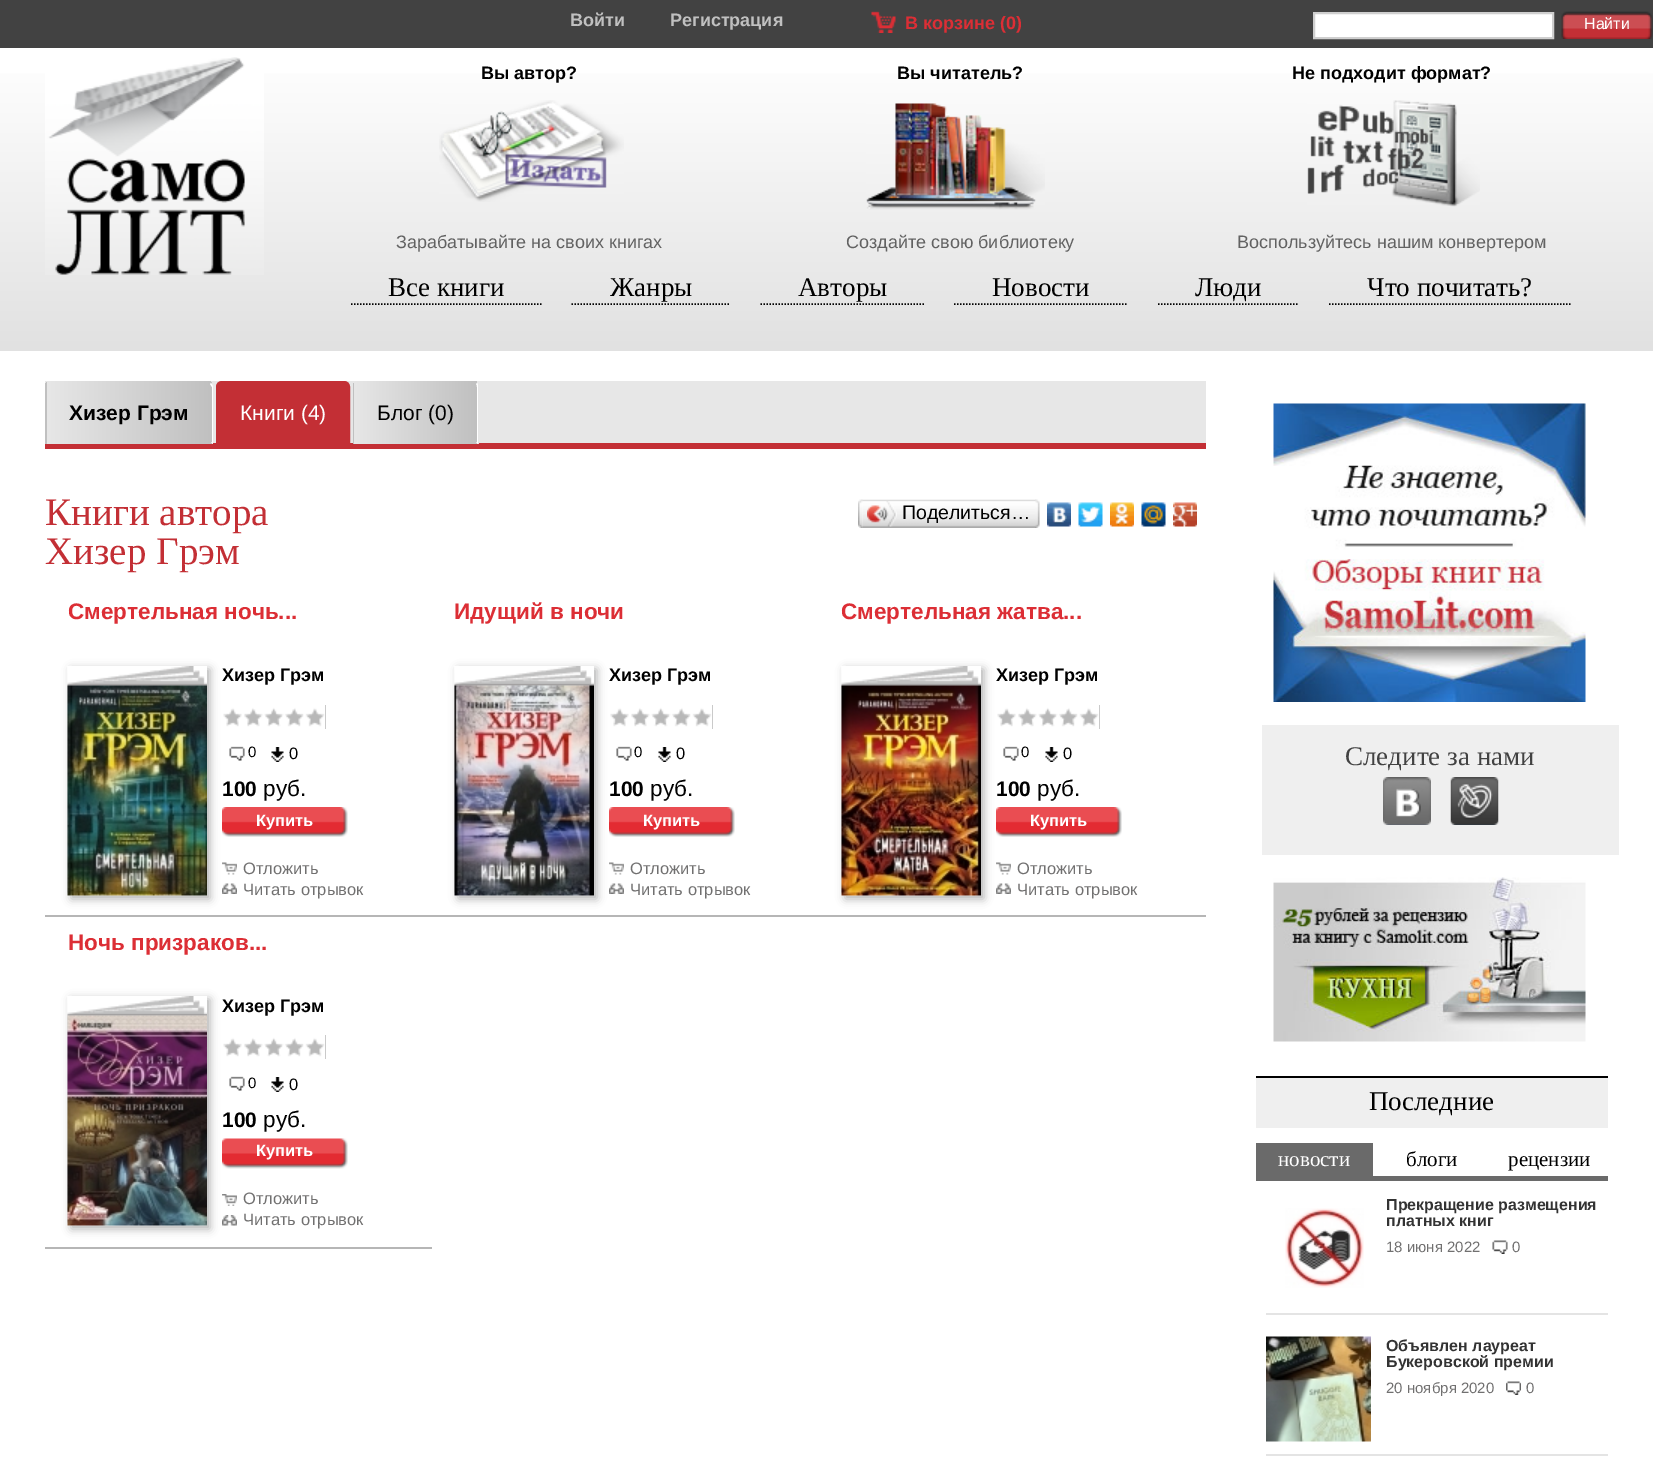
%!PS-Adobe-3.0
%%BoundingBox: 0 0 1653 1474
%%LanguageLevel: 3
%%Pages: 1
%%EndComments
%%BeginProlog
/setalpha { dup .setfillconstantalpha .setstrokeconstantalpha } def
/rrect { 5 dict begin { /r /h /w /y /x } { exch def } forall
  x r add y moveto x w add y 2 copy h add r arct x w add y h add x 1 index r arct
  x y h add x y r arct x y 2 copy exch w add exch r arct closepath end } def
/softshadow { 12 dict begin { /a /b /q /h /w /y /x } { exch def } forall gsave /was 0 def
  9 -2 -9 { dup b mul 4 div /e exch def 1 sub .425 mul 2.718 exch exp 1 add a .99 .min exch div /now exch def
    1 1 now sub 1 was sub div sub setalpha /was now def
    w h .min e 2 mul add 0 gt { x e sub y e sub w e 2 mul add h e 2 mul add
      q e add b .6 mul add w h .min 2 div e add .min 0 .max rrect fill } if } for grestore end } def
/drawimage { 5 dict begin { /h /w /y /x /name } { exch def } forall
  gsave x y translate w h scale
  w h 8 [w 0 0 h 0 0] name (r) file false 3 colorimage grestore end } def
%%EndProlog
%%BeginSetup
<< /PageSize [1653 1474] /PageUsesTransparency true >> setpagedevice
%%EndSetup
%%Page: 1 1
0 .pushpdf14devicefilter
0 1474 translate 1 -1 scale
4 setmiterlimit
1 setgray
0 0 1653 1474 rectfill
0.259 setgray
0 0 1653 48 rectfill
(images/1.raw) 871 11 25 22 drawimage
1 setgray
newpath 1314 13 moveto 1553 13 lineto 1553 38 lineto 1314 38 lineto closepath gsave fill grestore
0.812 setgray
2 setlinewidth
stroke
(images/2.raw) 1561 11 92 28 drawimage
gsave newpath 0 73 moveto 1653 73 lineto 1653 351 lineto 0 351 lineto closepath clip newpath
<< /ShadingType 2 /ColorSpace /DeviceRGB /Coords [827 351 827 48] /Extend [true true] /Function << /FunctionType 2 /Domain [0 1] /C0 [0.882 0.882 0.882] /C1 [1 1 1] /N 1 >> >> shfill grestore
(images/3.raw) 45 57 219 218 drawimage
(images/4.raw) 439 100 185 102 drawimage
(images/5.raw) 866 103 179 107 drawimage
(images/6.raw) 1307 100 173 107 drawimage
0 setgray
1.5 setlinewidth
[1.5 1.5] 0 setdash
newpath 351 304 moveto 541.5 304 lineto stroke
newpath 571.5 304 moveto 730.5 304 lineto stroke
newpath 760.5 304 moveto 924 304 lineto stroke
newpath 954 304 moveto 1128 304 lineto stroke
newpath 1158 304 moveto 1299 304 lineto stroke
newpath 1329 304 moveto 1570.5 304 lineto stroke
0.906 setgray
45 381 1161 62 rectfill
0.765 0.184 0.208 setrgbcolor
45 443 1161 6 rectfill
gsave
newpath 51 381 moveto 207 381 lineto 210.5 381 213 383.5 213 387 curveto 213 444 lineto 45 444 lineto 45 387 lineto 45 383.5 47.5 381 51 381 curveto closepath clip newpath
gsave newpath 45 381 moveto 47 381 lineto 47 444 lineto 45 444 lineto closepath clip newpath
<< /ShadingType 2 /ColorSpace /DeviceRGB /Coords [-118 413 47 413] /Extend [true true] /Function << /FunctionType 2 /Domain [0 1] /C0 [0.906 0.906 0.906] /C1 [0.753 0.753 0.753] /N 1 >> >> shfill grestore
gsave newpath 47 381 moveto 212 381 lineto 212 444 lineto 47 444 lineto closepath clip newpath
<< /ShadingType 2 /ColorSpace /DeviceRGB /Coords [47 413 212 413] /Extend [true true] /Function << /FunctionType 2 /Domain [0 1] /C0 [0.906 0.906 0.906] /C1 [0.753 0.753 0.753] /N 1 >> >> shfill grestore
gsave newpath 212 381 moveto 213 381 lineto 213 444 lineto 212 444 lineto closepath clip newpath
<< /ShadingType 2 /ColorSpace /DeviceRGB /Coords [212 413 377 413] /Extend [true true] /Function << /FunctionType 2 /Domain [0 1] /C0 [0.906 0.906 0.906] /C1 [0.753 0.753 0.753] /N 1 >> >> shfill grestore
grestore
1 setgray
newpath 213 444 moveto 213 387 lineto 213 386 212 384 211 383 curveto 210 384 lineto 212 387 lineto 212 442 lineto 211 442 lineto closepath fill
0.765 0.184 0.208 setrgbcolor
newpath 222 382 moveto 344 382 lineto 347 382 349 384 349 387 curveto 349 443 lineto 217 443 lineto 217 387 lineto 217 384 219 382 222 382 curveto closepath gsave fill grestore
2 setlinewidth
[] 0 setdash
stroke
gsave
newpath 359 381 moveto 473 381 lineto 476.5 381 479 383.5 479 387 curveto 479 444 lineto 353 444 lineto 353 387 lineto 353 383.5 355.5 381 359 381 curveto closepath clip newpath
gsave newpath 353 381 moveto 354 381 lineto 354 444 lineto 353 444 lineto closepath clip newpath
<< /ShadingType 2 /ColorSpace /DeviceRGB /Coords [231 413 354 413] /Extend [true true] /Function << /FunctionType 2 /Domain [0 1] /C0 [0.906 0.906 0.906] /C1 [0.753 0.753 0.753] /N 1 >> >> shfill grestore
gsave newpath 354 381 moveto 477 381 lineto 477 444 lineto 354 444 lineto closepath clip newpath
<< /ShadingType 2 /ColorSpace /DeviceRGB /Coords [354 413 477 413] /Extend [true true] /Function << /FunctionType 2 /Domain [0 1] /C0 [0.906 0.906 0.906] /C1 [0.753 0.753 0.753] /N 1 >> >> shfill grestore
gsave newpath 477 381 moveto 479 381 lineto 479 444 lineto 477 444 lineto closepath clip newpath
<< /ShadingType 2 /ColorSpace /DeviceRGB /Coords [477 413 600 413] /Extend [true true] /Function << /FunctionType 2 /Domain [0 1] /C0 [0.906 0.906 0.906] /C1 [0.753 0.753 0.753] /N 1 >> >> shfill grestore
grestore
1 setgray
newpath 477 383 moveto 478 384 478 386 478 387 curveto 478 444 lineto 476 442 lineto 477 442 lineto 477 387 lineto 477 386 477 385 476 384 curveto closepath fill
(images/7.raw) 862 499 173 29 drawimage
(images/8.raw) 858 499 5 29 drawimage
(images/9.raw) 867 501 30 26 drawimage
(images/10.raw) 1035 499 5 29 drawimage
(images/11.raw) 1047 502 24 25 drawimage
(images/12.raw) 1078 502 25 25 drawimage
(images/13.raw) 1110 502 24 25 drawimage
(images/14.raw) 1141 502 25 25 drawimage
(images/15.raw) 1173 502 24 25 drawimage
0.714 setgray
45 915 1161 2 rectfill
(images/21.raw) 222 807 126 30 drawimage
(images/22.raw) 222 862 15 13 drawimage
(images/23.raw) 222 883 15 11 drawimage
0 setgray
71 669 139 230 0 4.5 0.3 softshadow
(images/16.raw) 67 666 140 227 drawimage
(images/17.raw) 67 685 140 211 drawimage
0.722 setgray
223 705 103 24 rectfill
(images/18.raw) 222 705 104 24 drawimage
(images/19.raw) 229 746 16 15 drawimage
(images/20.raw) 271 747 13 15 drawimage
(images/21.raw) 609 807 126 30 drawimage
(images/22.raw) 609 862 15 13 drawimage
(images/23.raw) 609 883 15 11 drawimage
0 setgray
458 669 139 230 0 4.5 0.3 softshadow
(images/16.raw) 454 666 140 227 drawimage
(images/24.raw) 454 685 140 211 drawimage
0.722 setgray
610 705 103 24 rectfill
(images/18.raw) 609 705 104 24 drawimage
(images/25.raw) 616 746 16 15 drawimage
(images/26.raw) 658 747 13 15 drawimage
(images/21.raw) 996 807 126 30 drawimage
(images/22.raw) 996 862 15 13 drawimage
(images/23.raw) 996 883 15 11 drawimage
0 setgray
845 669 139 230 0 4.5 0.3 softshadow
(images/16.raw) 841 666 140 227 drawimage
(images/27.raw) 841 685 140 211 drawimage
0.722 setgray
997 705 103 24 rectfill
(images/18.raw) 996 705 104 24 drawimage
(images/19.raw) 1003 746 16 15 drawimage
(images/26.raw) 1045 747 13 15 drawimage
0.714 setgray
45 1247 387 2 rectfill
(images/29.raw) 222 1138 126 31 drawimage
(images/30.raw) 222 1194 15 12 drawimage
(images/31.raw) 222 1215 15 11 drawimage
0 setgray
71 999 139 230 0 4.5 0.3 softshadow
(images/16.raw) 67 996 140 227 drawimage
(images/28.raw) 67 1015 140 211 drawimage
0.722 setgray
223 1035 103 24 rectfill
(images/18.raw) 222 1035 104 24 drawimage
(images/19.raw) 229 1076 16 15 drawimage
(images/20.raw) 271 1077 13 15 drawimage
(images/32.raw) 1273 403 313 299 drawimage
0.937 setgray
1262 725 357 130 rectfill
(images/33.raw) 1383 777 48 48 drawimage
(images/34.raw) 1450 777 49 48 drawimage
(images/35.raw) 1273 877 313 165 drawimage
1256 1078 352 50 rectfill
0 setgray
1256 1076 352 2 rectfill
0.416 setgray
1256 1176 352 5 rectfill
1256 1143 117 33 rectfill
0.894 setgray
1266 1313 342 2 rectfill
(images/36.raw) 1285 1208 79 80 drawimage
(images/37.raw) 1492 1240 16 14 drawimage
1266 1454 342 2 rectfill
(images/38.raw) 1266 1336 105 106 drawimage
(images/39.raw) 1506 1381 15 14 drawimage
/LiberationSans-Bold [18 0 0 -18 0 0] selectfont
0.753 setgray
570 26 moveto (Войти) show
670 26 moveto (Регистрация) show
0.863 0.18 0.208 setrgbcolor
905 29 moveto (В корзине \(0\)) show
/LiberationSans-Regular [16 0 0 -16 0 0] selectfont
1 setgray
1584 29 moveto (Найти) show
/LiberationSans-Bold [18 0 0 -18 0 0] selectfont
0 setgray
481 79 moveto (Вы автор?) show
/LiberationSans-Regular [18 0 0 -18 0 0] selectfont
0.384 setgray
396 248 moveto (Зарабатывайте на своих книгах) show
/LiberationSans-Bold [18 0 0 -18 0 0] selectfont
0 setgray
897 79 moveto (Вы читатель?) show
/LiberationSans-Regular [18 0 0 -18 0 0] selectfont
0.384 setgray
846 248 moveto (Создайте свою библиотеку) show
/LiberationSans-Bold [18 0 0 -18 0 0] selectfont
0 setgray
1292 79 moveto (Не подходит формат?) show
/LiberationSans-Regular [18 0 0 -18 0 0] selectfont
0.384 setgray
1237 248 moveto (Воспользуйтесь нашим конвертером) show
/LiberationSerif-Regular [27 0 0 -27 0 0] selectfont
0 setgray
388 296 moveto (Все книги) show
610 296 moveto (Жанры) show
798 296 moveto (Авторы) show
992 296 moveto (Новости) show
1195 296 moveto (Люди) show
1367 296 moveto (Что почитать?) show
/LiberationSans-Bold [21 0 0 -21 0 0] selectfont
69 420 moveto (Хизер Грэм) show
/LiberationSans-Regular [21 0 0 -21 0 0] selectfont
1 setgray
240 420 moveto (Книги \(4\)) show
0 setgray
377 420 moveto (Блог \(0\)) show
/LiberationSerif-Regular [39 0 0 -39 0 0] selectfont
0.765 0.184 0.208 setrgbcolor
45 525 moveto (Книги автора) show
45 564 moveto (Хизер Грэм) show
/LiberationSans-Regular [19.5 0 0 -19.5 0 0] selectfont
0 setgray
902 519 moveto (Поделиться…) show
/LiberationSans-Bold [22.5 0 0 -22.5 0 0] selectfont
0.863 0.18 0.208 setrgbcolor
68 619 moveto (Смертельная ночь...) show
/LiberationSans-Bold [18 0 0 -18 0 0] selectfont
0 setgray
222 681 moveto (Хизер Грэм) show
/LiberationSans-Regular [15 0 0 -15 0 0] selectfont
248 757 moveto (0) show
/LiberationSans-Regular [16.5 0 0 -16.5 0 0] selectfont
289 759 moveto -2 0 (0) ashow
/LiberationSans-Bold [21 0 0 -21 0 0] selectfont
222 796 moveto (100) show
/LiberationSans-Regular [22.5 0 0 -22.5 0 0] selectfont
263 796 moveto (руб.) show
/LiberationSans-Bold [16.5 0 0 -16.5 0 0] selectfont
1 setgray
256 826 moveto (Купить) show
/LiberationSans-Regular [16.5 0 0 -16.5 0 0] selectfont
0.443 0.439 0.439 setrgbcolor
243 874 moveto (Отложить) show
243 895 moveto (Читать отрывок) show
/LiberationSans-Bold [22.5 0 0 -22.5 0 0] selectfont
0.863 0.18 0.208 setrgbcolor
454 619 moveto (Идущий в ночи) show
/LiberationSans-Bold [18 0 0 -18 0 0] selectfont
0 setgray
609 681 moveto (Хизер Грэм) show
/LiberationSans-Regular [15 0 0 -15 0 0] selectfont
634 757 moveto (0) show
/LiberationSans-Regular [16.5 0 0 -16.5 0 0] selectfont
676 759 moveto -2 0 (0) ashow
/LiberationSans-Bold [21 0 0 -21 0 0] selectfont
609 796 moveto (100) show
/LiberationSans-Regular [22.5 0 0 -22.5 0 0] selectfont
650 796 moveto (руб.) show
/LiberationSans-Bold [16.5 0 0 -16.5 0 0] selectfont
1 setgray
643 826 moveto (Купить) show
/LiberationSans-Regular [16.5 0 0 -16.5 0 0] selectfont
0.443 0.439 0.439 setrgbcolor
630 874 moveto (Отложить) show
630 895 moveto (Читать отрывок) show
/LiberationSans-Bold [22.5 0 0 -22.5 0 0] selectfont
0.863 0.18 0.208 setrgbcolor
841 619 moveto (Смертельная жатва...) show
/LiberationSans-Bold [18 0 0 -18 0 0] selectfont
0 setgray
996 681 moveto (Хизер Грэм) show
/LiberationSans-Regular [15 0 0 -15 0 0] selectfont
1021 757 moveto (0) show
/LiberationSans-Regular [16.5 0 0 -16.5 0 0] selectfont
1063 759 moveto -2 0 (0) ashow
/LiberationSans-Bold [21 0 0 -21 0 0] selectfont
996 796 moveto (100) show
/LiberationSans-Regular [22.5 0 0 -22.5 0 0] selectfont
1037 796 moveto (руб.) show
/LiberationSans-Bold [16.5 0 0 -16.5 0 0] selectfont
1 setgray
1030 826 moveto (Купить) show
/LiberationSans-Regular [16.5 0 0 -16.5 0 0] selectfont
0.443 0.439 0.439 setrgbcolor
1017 874 moveto (Отложить) show
1017 895 moveto (Читать отрывок) show
/LiberationSans-Bold [22.5 0 0 -22.5 0 0] selectfont
0.863 0.18 0.208 setrgbcolor
68 950 moveto (Ночь призраков...) show
/LiberationSans-Bold [18 0 0 -18 0 0] selectfont
0 setgray
222 1012 moveto (Хизер Грэм) show
/LiberationSans-Regular [15 0 0 -15 0 0] selectfont
248 1088 moveto (0) show
/LiberationSans-Regular [16.5 0 0 -16.5 0 0] selectfont
289 1090 moveto -2 0 (0) ashow
/LiberationSans-Bold [21 0 0 -21 0 0] selectfont
222 1127 moveto (100) show
/LiberationSans-Regular [22.5 0 0 -22.5 0 0] selectfont
263 1127 moveto (руб.) show
/LiberationSans-Bold [16.5 0 0 -16.5 0 0] selectfont
1 setgray
256 1156 moveto (Купить) show
/LiberationSans-Regular [16.5 0 0 -16.5 0 0] selectfont
0.443 0.439 0.439 setrgbcolor
243 1204 moveto (Отложить) show
243 1225 moveto (Читать отрывок) show
/LiberationSerif-Regular [27 0 0 -27 0 0] selectfont
0.259 setgray
1345 765 moveto (Следите за нами) show
0 setgray
1369 1110 moveto (Последние) show
/LiberationSerif-Regular [21 0 0 -21 0 0] selectfont
1 setgray
1278 1166 moveto (новости) show
0 setgray
1406 1166 moveto (блоги) show
1508 1166 moveto (рецензии) show
/LiberationSans-Bold [16 0 0 -16 0 0] selectfont
0.2 setgray
1386 1210 moveto (Прекращение размещения) show
1386 1226 moveto (платных книг) show
/LiberationSans-Regular [15 0 0 -15 0 0] selectfont
0.443 0.439 0.439 setrgbcolor
1386 1252 moveto (18 июня 2022) show
1512 1252 moveto (0) show
/LiberationSans-Bold [16 0 0 -16 0 0] selectfont
0.2 setgray
1386 1351 moveto (Объявлен лауреат) show
1386 1367 moveto (Букеровской премии) show
/LiberationSans-Regular [15 0 0 -15 0 0] selectfont
0.443 0.439 0.439 setrgbcolor
1386 1393 moveto (20 ноября 2020) show
1526 1393 moveto (0) show
.poppdf14devicefilter showpage
%%EOF
